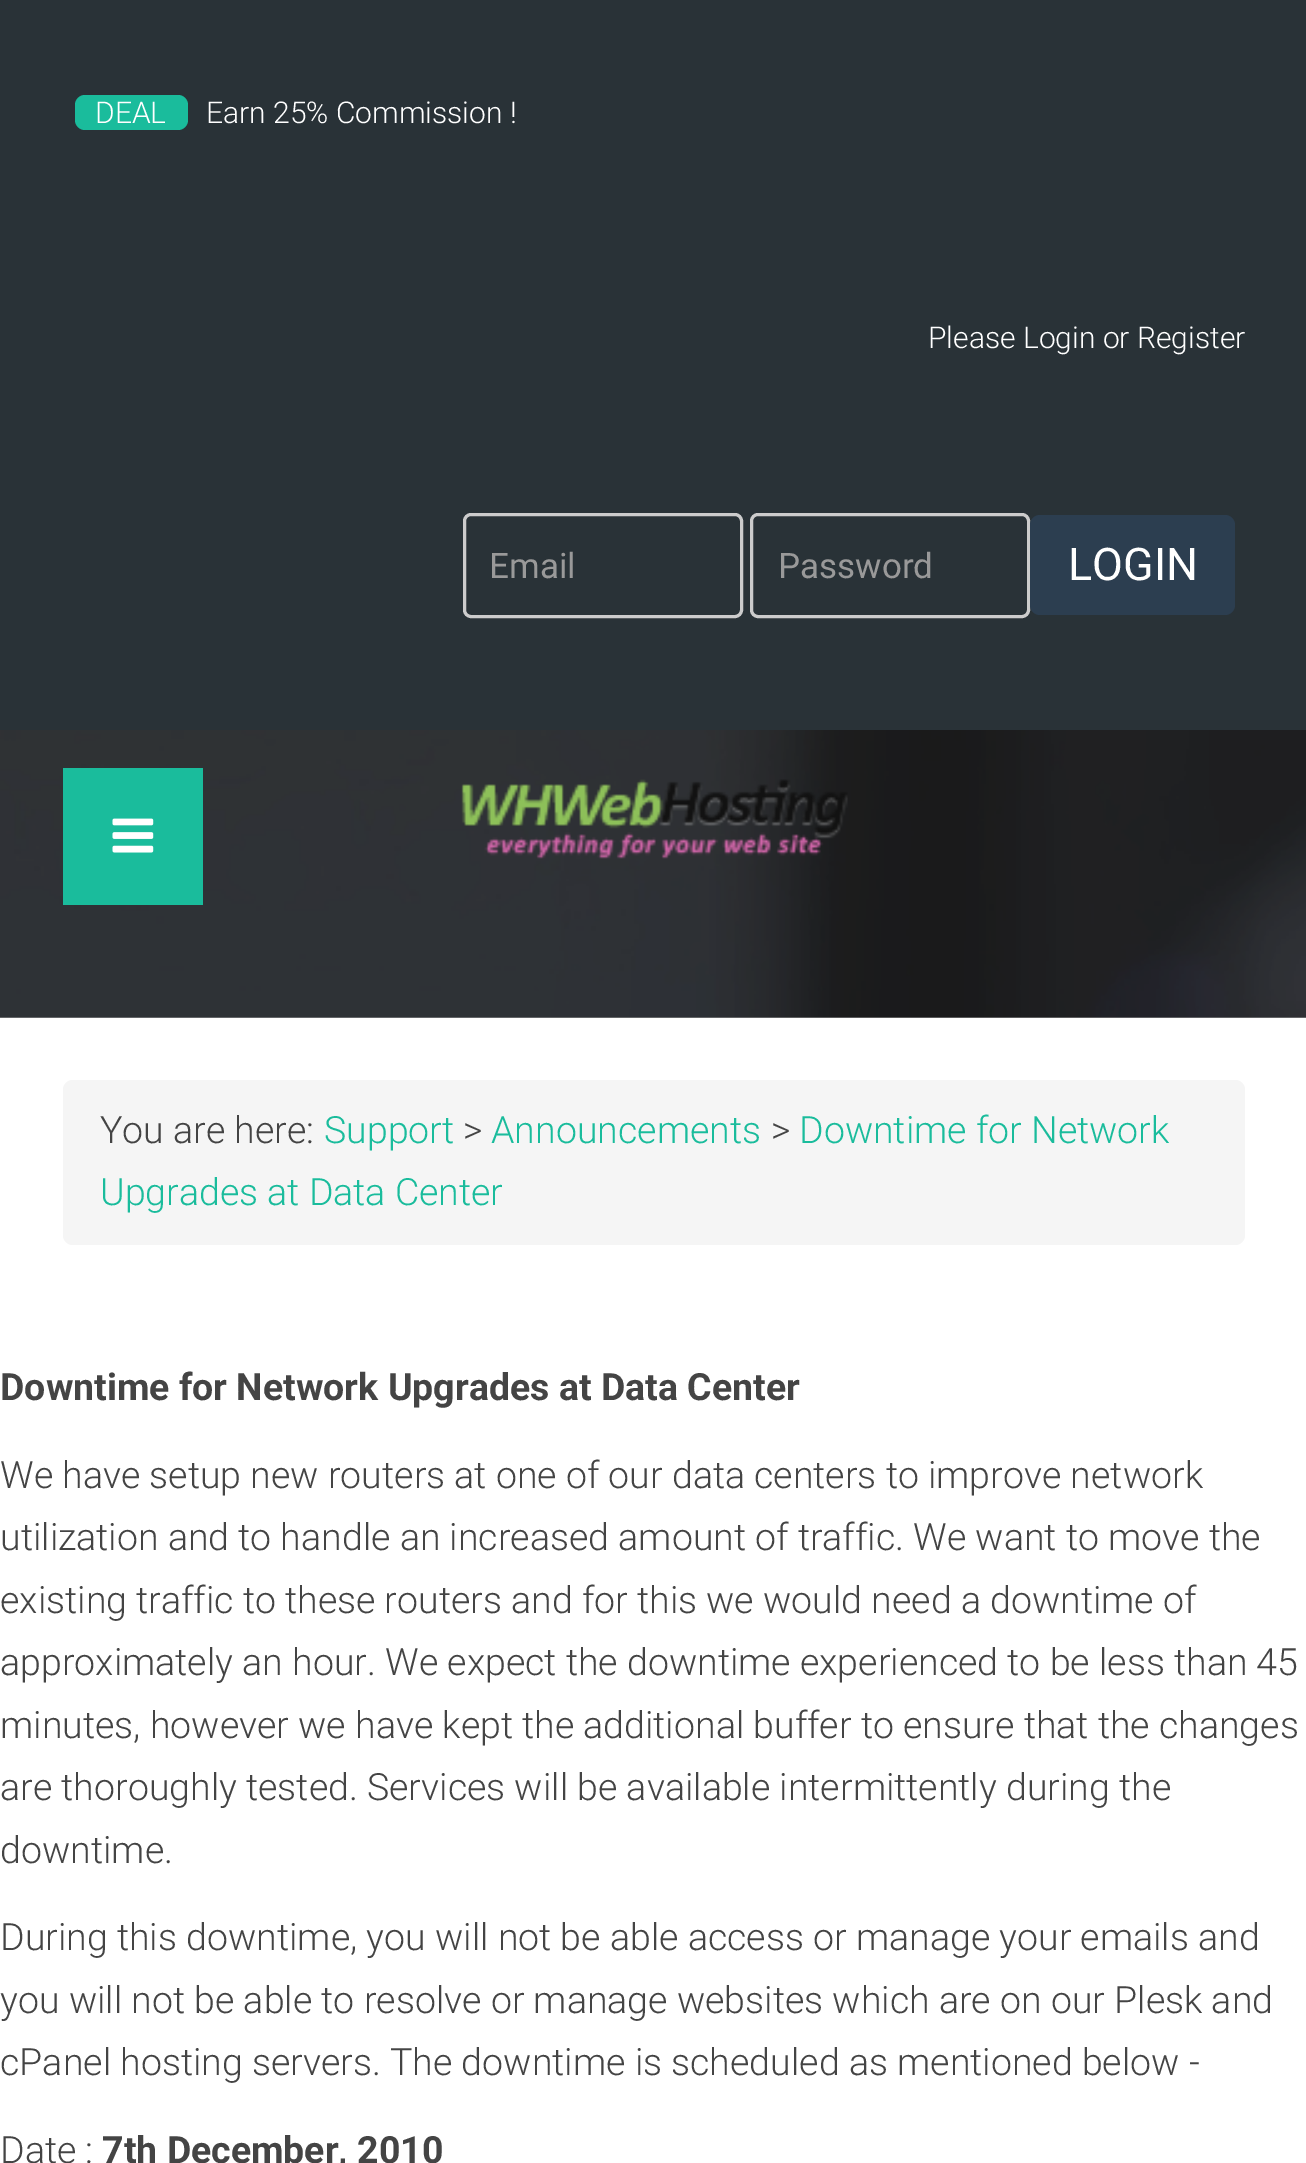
%!PS-Adobe-3.0
%%BoundingBox: 0 0 1306 2163
%%LanguageLevel: 3
%%Pages: 1
%%EndComments
%%BeginProlog
/rrect { 5 dict begin { /r /h /w /y /x } { exch def } forall
  x r add y moveto x w add y 2 copy h add r arct x w add y h add x 1 index r arct
  x y h add x y r arct x y 2 copy exch w add exch r arct closepath end } def
/drawimage { 5 dict begin { /h /w /y /x /name } { exch def } forall
  gsave x y translate w h scale
  w h 8 [w 0 0 h 0 0] name (r) file false 3 colorimage grestore end } def
%%EndProlog
%%BeginSetup
<< /PageSize [1306 2163] >> setpagedevice
%%EndSetup
%%Page: 1 1
0 2163 translate 1 -1 scale
4 setmiterlimit
1 setgray
0 0 1306 2163 rectfill
0.6 setgray
0 1017 1306 1 rectfill
0.161 0.196 0.216 setrgbcolor
0 0 1306 730 rectfill
0.102 0.737 0.612 setrgbcolor
75 95 113 35 10 rrect fill
0.8 setgray
3 setlinewidth
464.5 514.5 277 102 6.5 rrect stroke
751.5 514.5 277 102 6.5 rrect stroke
0.173 0.243 0.314 setrgbcolor
1030 515 205 100 10 rrect fill
(images/1.raw) 0 730 1306 288 drawimage
0.102 0.737 0.612 setrgbcolor
63 768 140 137 rectfill
(images/2.raw) 112 818 42 35 drawimage
(images/3.raw) 461 779 387 80 drawimage
0.961 setgray
63 1080 1182 165 10 rrect fill
/Roboto-Light [30 0 0 -30 0 0] selectfont
1 setgray
95 123 moveto (DEAL) show
206 123 moveto (Earn 25% Commission !) show
928 348 moveto (Please Login or Register) show
/Roboto-Regular [35 0 0 -35 0 0] selectfont
0.6 setgray
489 578 moveto (Email) show
778 578 moveto (Password) show
/Roboto-Regular [45 0 0 -45 0 0] selectfont
1 setgray
1068 580 moveto (LOGIN) show
/Roboto-Light [37.5 0 0 -37.5 0 0] selectfont
0.267 setgray
100 1143 moveto (You are here:) show
0.102 0.737 0.612 setrgbcolor
324 1143 moveto (Support) show
0.267 setgray
463 1143 moveto (>) show
0.102 0.737 0.612 setrgbcolor
491 1143 moveto (Announcements) show
0.267 setgray
771 1143 moveto (>) show
0.102 0.737 0.612 setrgbcolor
799 1143 moveto (Downtime for Network) show
100 1205 moveto (Upgrades at Data Center) show
/Roboto-Bold [37.5 0 0 -37.5 0 0] selectfont
0.267 setgray
0 1400 moveto (Downtime for Network Upgrades at Data Center) show
/Roboto-Light [37.5 0 0 -37.5 0 0] selectfont
0 1488 moveto (We have setup new routers at one of our data centers to improve network) show
0 1550 moveto (utilization and to handle an increased amount of traffic. We want to move the) show
0 1613 moveto (existing traffic to these routers and for this we would need a downtime of) show
0 1675 moveto (approximately an hour. We expect the downtime experienced to be less than 45) show
0 1738 moveto (minutes, however we have kept the additional buffer to ensure that the changes) show
0 1800 moveto (are thoroughly tested. Services will be available intermittently during the) show
0 1863 moveto (downtime.) show
0 1950 moveto (During this downtime, you will not be able access or manage your emails and) show
0 2013 moveto (you will not be able to resolve or manage websites which are on our Plesk and) show
0 2075 moveto (cPanel hosting servers. The downtime is scheduled as mentioned below -) show
0 2163 moveto (Date :) show
/Roboto-Bold [37.5 0 0 -37.5 0 0] selectfont
102 2163 moveto (7th December, 2010) show
showpage
%%EOF
